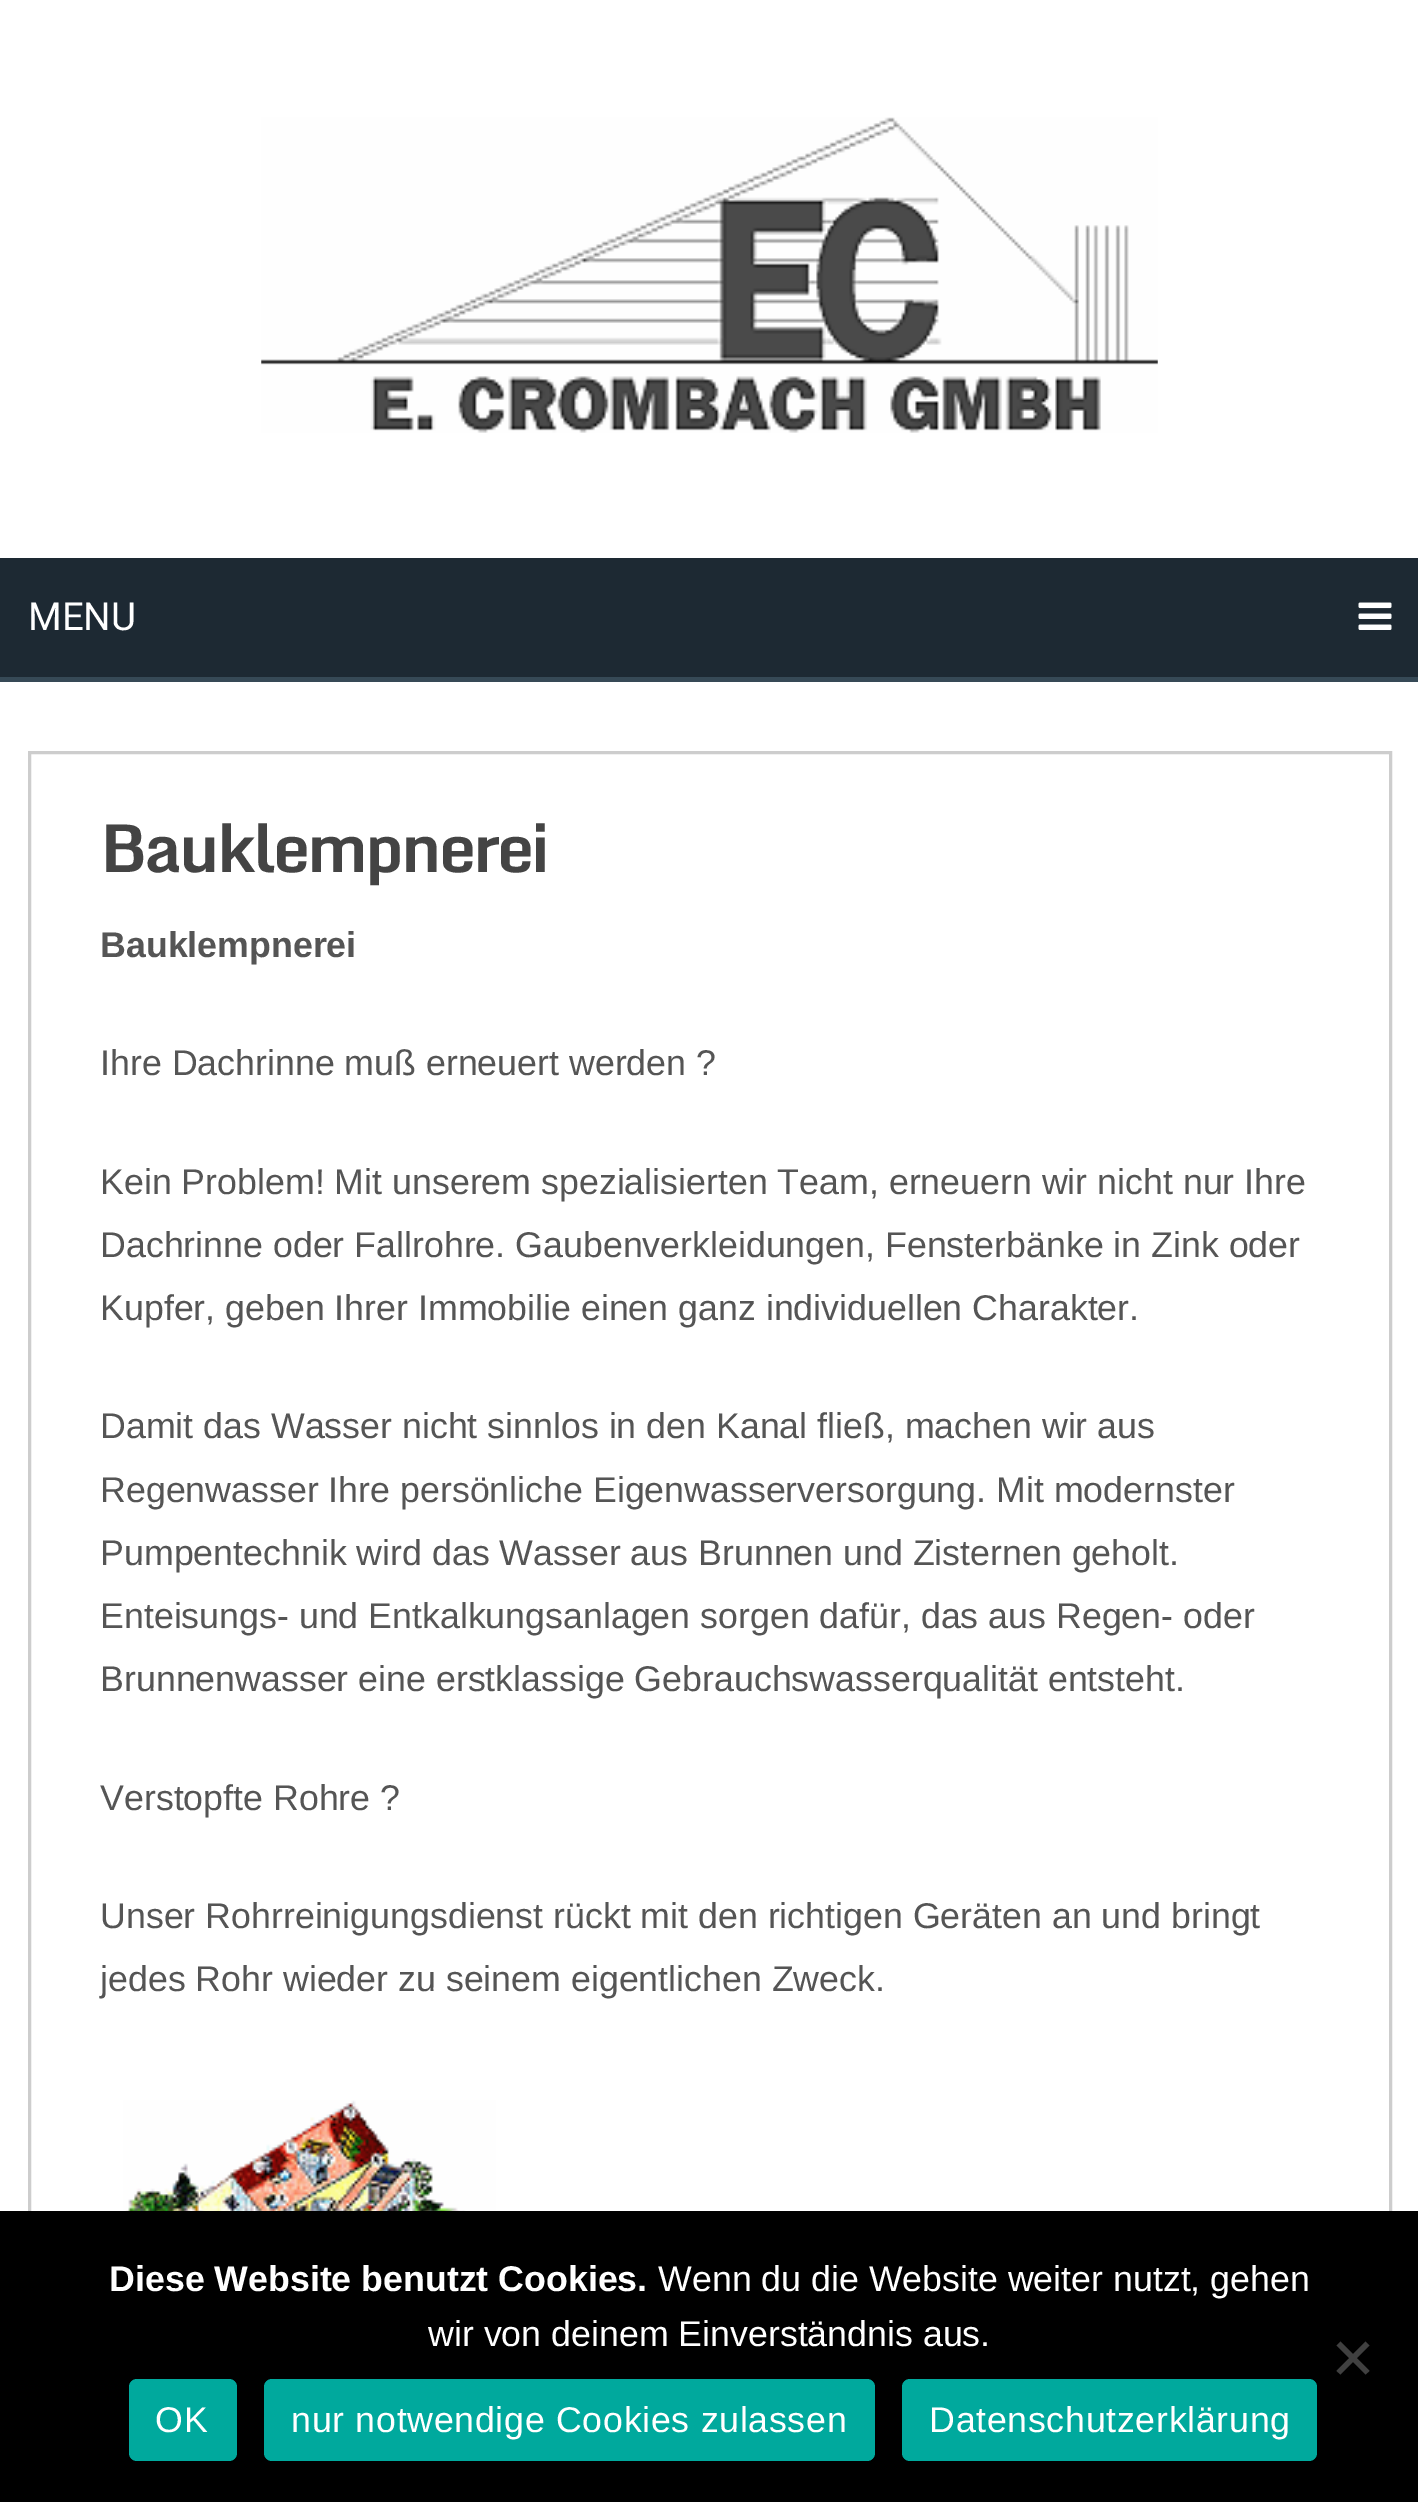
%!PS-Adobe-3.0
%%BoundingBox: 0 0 1418 2502
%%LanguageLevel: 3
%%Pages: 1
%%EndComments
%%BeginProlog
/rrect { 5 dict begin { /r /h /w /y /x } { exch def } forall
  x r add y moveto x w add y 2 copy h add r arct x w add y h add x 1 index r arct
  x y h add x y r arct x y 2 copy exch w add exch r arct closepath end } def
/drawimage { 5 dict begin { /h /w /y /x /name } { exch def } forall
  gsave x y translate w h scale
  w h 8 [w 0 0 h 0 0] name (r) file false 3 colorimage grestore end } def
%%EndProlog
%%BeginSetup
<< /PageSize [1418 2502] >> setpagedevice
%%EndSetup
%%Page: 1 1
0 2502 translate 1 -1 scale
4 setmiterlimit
1 setgray
0 0 1418 2502 rectfill
(images/1.raw) 261 117 897 316 drawimage
0.212 0.286 0.337 setrgbcolor
0 677 1418 5 rectfill
0.114 0.161 0.2 setrgbcolor
0 558 1418 119 rectfill
(images/2.raw) 1358 602 34 28 drawimage
0.804 setgray
3 setlinewidth
29.5 752.5 1361 1677 rectstroke
(images/3.raw) 123 2100 373 111 drawimage
0 setgray
0 2211 1418 291 rectfill
0.251 setgray
newpath 1365.5 2341.5 moveto 1369.5 2345.5 lineto 1340.5 2374.5 lineto 1336.5 2371 lineto closepath fill
newpath 1336.5 2345.5 moveto 1340.5 2341.5 lineto 1369.5 2371 lineto 1365.5 2374.5 lineto closepath fill
0 0.663 0.616 setrgbcolor
129 2379 108 82 8 rrect fill
264 2379 611 82 8 rrect fill
902 2379 415 82 8 rrect fill
/Roboto-Regular [38.5 0 0 -38.5 0 0] selectfont
1 setgray
28 630 moveto (MENU) show
/Monda-Bold [66 0 0 -66 0 0] selectfont
0.267 setgray
100 872 moveto -2.75 0 (Bauklempnerei) ashow
/LiberationSans-Bold [35.75 0 0 -35.75 0 0] selectfont
0.333 setgray
100 957 moveto (Bauklempnerei) show
/LiberationSans-Regular [35.75 0 0 -35.75 0 0] selectfont
100 1075 moveto (Ihre Dachrinne muß erneuert werden ?) show
100 1194 moveto (Kein Problem! Mit unserem spezialisierten Team, erneuern wir nicht nur Ihre) show
100 1257 moveto (Dachrinne oder Fallrohre. Gaubenverkleidungen, Fensterbänke in Zink oder) show
100 1320 moveto (Kupfer, geben Ihrer Immobilie einen ganz individuellen Charakter.) show
100 1438 moveto (Damit das Wasser nicht sinnlos in den Kanal fließ, machen wir aus) show
100 1502 moveto (Regenwasser Ihre persönliche Eigenwasserversorgung. Mit modernster) show
100 1565 moveto (Pumpentechnik wird das Wasser aus Brunnen und Zisternen geholt.) show
100 1628 moveto (Enteisungs- und Entkalkungsanlagen sorgen dafür, das aus Regen- oder) show
100 1691 moveto (Brunnenwasser eine erstklassige Gebrauchswasserqualität entsteht.) show
100 1810 moveto (Verstopfte Rohre ?) show
100 1928 moveto (Unser Rohrreinigungsdienst rückt mit den richtigen Geräten an und bringt) show
100 1991 moveto (jedes Rohr wieder zu seinem eigentlichen Zweck.) show
/LiberationSans-Bold [35.75 0 0 -35.75 0 0] selectfont
1 setgray
109 2291 moveto (Diese Website benutzt Cookies.) show
/LiberationSans-Regular [35.75 0 0 -35.75 0 0] selectfont
658 2291 moveto (Wenn du die Website weiter nutzt, gehen) show
428 2346 moveto (wir von deinem Einverständnis aus.) show
155 2432 moveto 0.7 0 (OK) ashow
291 2432 moveto 0.7 0 (nur notwendige Cookies zulassen) ashow
929 2432 moveto 0.7 0 (Datenschutzerklärung) ashow
showpage
%%EOF
